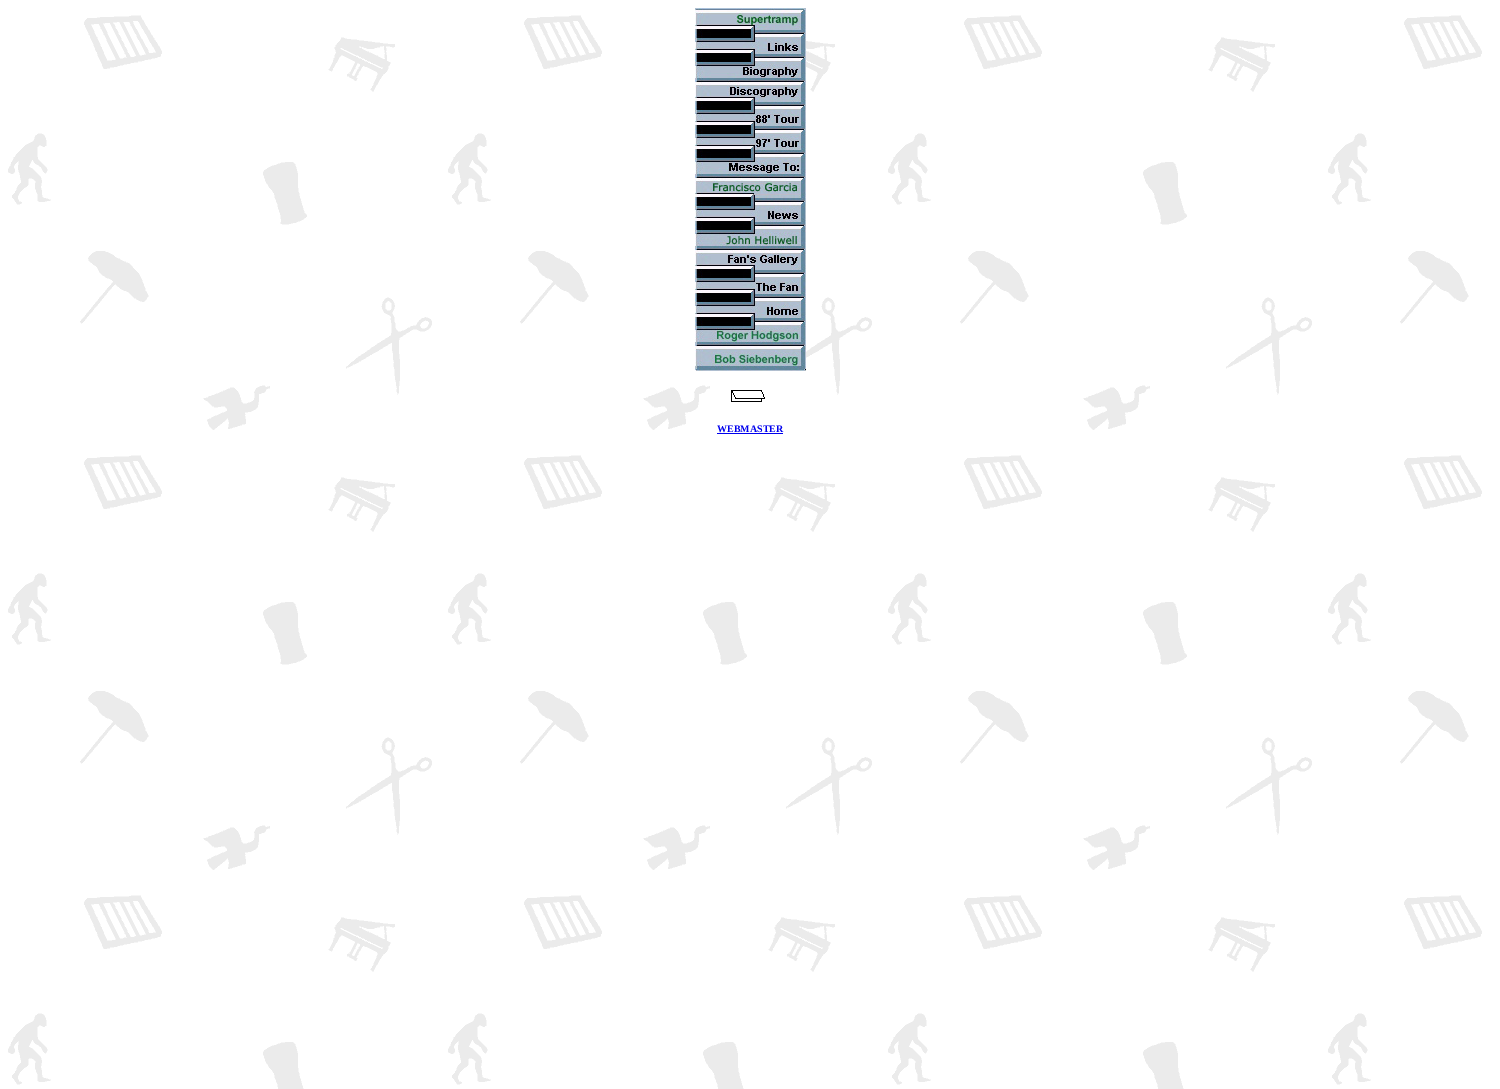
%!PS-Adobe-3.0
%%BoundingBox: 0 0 1500 1089
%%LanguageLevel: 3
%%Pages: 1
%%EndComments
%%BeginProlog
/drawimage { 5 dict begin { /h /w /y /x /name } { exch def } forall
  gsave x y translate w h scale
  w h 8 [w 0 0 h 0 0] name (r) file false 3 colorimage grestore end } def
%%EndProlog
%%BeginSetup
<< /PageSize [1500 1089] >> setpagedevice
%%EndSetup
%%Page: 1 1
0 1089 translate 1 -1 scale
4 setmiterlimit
1 setgray
0 0 1500 1089 rectfill
(images/1.raw) 8 15 1474 1074 drawimage
(images/2.raw) 695 8 111 363 drawimage
(images/3.raw) 731 390 34 12 drawimage
0 0 0.933 setrgbcolor
717 433 66 1 rectfill
/LiberationSerif-Bold [10 0 0 -10 0 0] selectfont
717 432 moveto (WEBMASTER) show
showpage
%%EOF
